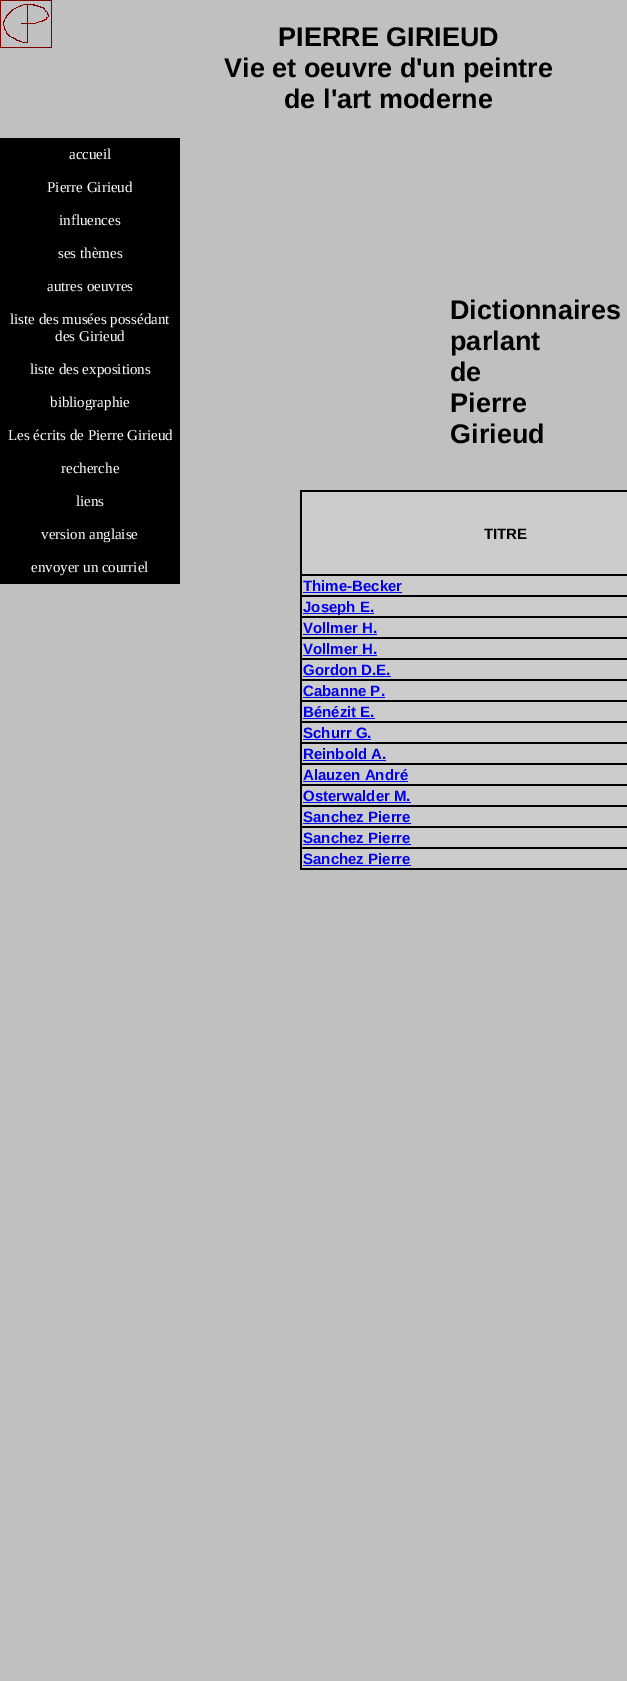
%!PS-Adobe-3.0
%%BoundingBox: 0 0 627 1681
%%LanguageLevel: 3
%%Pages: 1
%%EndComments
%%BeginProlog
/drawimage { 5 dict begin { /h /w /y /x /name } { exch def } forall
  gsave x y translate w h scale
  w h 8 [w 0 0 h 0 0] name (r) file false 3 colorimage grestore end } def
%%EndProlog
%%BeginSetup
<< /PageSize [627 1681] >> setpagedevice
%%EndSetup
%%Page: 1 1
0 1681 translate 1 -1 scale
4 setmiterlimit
0.753 setgray
0 0 627 1681 rectfill
(images/1.raw) 0 0 52 48 drawimage
0 setgray
0 138 180 446 rectfill
300 490 327 2 rectfill
300 868 327 2 rectfill
300 490 2 380 rectfill
0.8 setgray
302 492 325 82 rectfill
302 576 325 19 rectfill
0 setgray
300 574 327 2 rectfill
0 0 0.933 setrgbcolor
303 592 99 1 rectfill
0.8 setgray
302 597 325 19 rectfill
0 setgray
300 595 327 2 rectfill
0 0 0.933 setrgbcolor
303 613 71 1 rectfill
0.8 setgray
302 618 325 19 rectfill
0 setgray
300 616 327 2 rectfill
0 0 0.933 setrgbcolor
303 634 74 1 rectfill
0.8 setgray
302 639 325 19 rectfill
0 setgray
300 637 327 2 rectfill
0 0 0.933 setrgbcolor
303 655 74 1 rectfill
0.8 setgray
302 660 325 19 rectfill
0 setgray
300 658 327 2 rectfill
0 0 0.933 setrgbcolor
303 676 88 1 rectfill
0.8 setgray
302 681 325 19 rectfill
0 setgray
300 679 327 2 rectfill
0 0 0.933 setrgbcolor
303 697 82 1 rectfill
0.8 setgray
302 702 325 19 rectfill
0 setgray
300 700 327 2 rectfill
0 0 0.933 setrgbcolor
303 718 72 1 rectfill
0.8 setgray
302 723 325 19 rectfill
0 setgray
300 721 327 2 rectfill
0 0 0.933 setrgbcolor
303 739 68 1 rectfill
0.8 setgray
302 744 325 19 rectfill
0 setgray
300 742 327 2 rectfill
0 0 0.933 setrgbcolor
303 760 83 1 rectfill
0.8 setgray
302 765 325 19 rectfill
0 setgray
300 763 327 2 rectfill
0 0 0.933 setrgbcolor
303 781 105 1 rectfill
0.8 setgray
302 786 325 19 rectfill
0 setgray
300 784 327 2 rectfill
0 0 0.933 setrgbcolor
303 802 108 1 rectfill
0.8 setgray
302 807 325 19 rectfill
0 setgray
300 805 327 2 rectfill
0 0 0.933 setrgbcolor
303 823 108 1 rectfill
0.8 setgray
302 828 325 19 rectfill
0 setgray
300 826 327 2 rectfill
0 0 0.933 setrgbcolor
303 844 108 1 rectfill
0.8 setgray
302 849 325 19 rectfill
0 setgray
300 847 327 2 rectfill
0 0 0.933 setrgbcolor
303 865 108 1 rectfill
/LiberationSans-Bold [27 0 0 -27 0 0] selectfont
0 setgray
278 46 moveto (PIERRE GIRIEUD) show
224 77 moveto (Vie et oeuvre d'un peintre) show
284 108 moveto (de l'art moderne) show
/LiberationSerif-Regular [15 0 0 -15 0 0] selectfont
1 setgray
69 159 moveto (accueil) show
47 192 moveto (Pierre Girieud) show
59 225 moveto (influences) show
58 258 moveto (ses thèmes) show
47 291 moveto (autres oeuvres) show
10 324 moveto (liste des musées possédant) show
55 341 moveto (des Girieud) show
30 374 moveto (liste des expositions) show
50 407 moveto (bibliographie) show
8 440 moveto (Les écrits de Pierre Girieud) show
61 473 moveto (recherche) show
76 506 moveto (liens) show
41 539 moveto (version anglaise) show
31 572 moveto (envoyer un courriel) show
/LiberationSans-Bold [27 0 0 -27 0 0] selectfont
0 setgray
450 319 moveto (Dictionnaires) show
450 350 moveto (parlant) show
450 381 moveto (de) show
450 412 moveto (Pierre) show
450 443 moveto (Girieud) show
/LiberationSans-Bold [15 0 0 -15 0 0] selectfont
484 539 moveto (TITRE) show
0 0 0.933 setrgbcolor
303 591 moveto (Thime-Becker) show
303 612 moveto (Joseph E.) show
303 633 moveto (Vollmer H.) show
303 654 moveto (Vollmer H.) show
303 675 moveto (Gordon D.E.) show
303 696 moveto (Cabanne P.) show
303 717 moveto (Bénézit E.) show
303 738 moveto (Schurr G.) show
303 759 moveto (Reinbold A.) show
303 780 moveto (Alauzen André) show
303 801 moveto (Osterwalder M.) show
303 822 moveto (Sanchez Pierre) show
303 843 moveto (Sanchez Pierre) show
303 864 moveto (Sanchez Pierre) show
showpage
%%EOF
